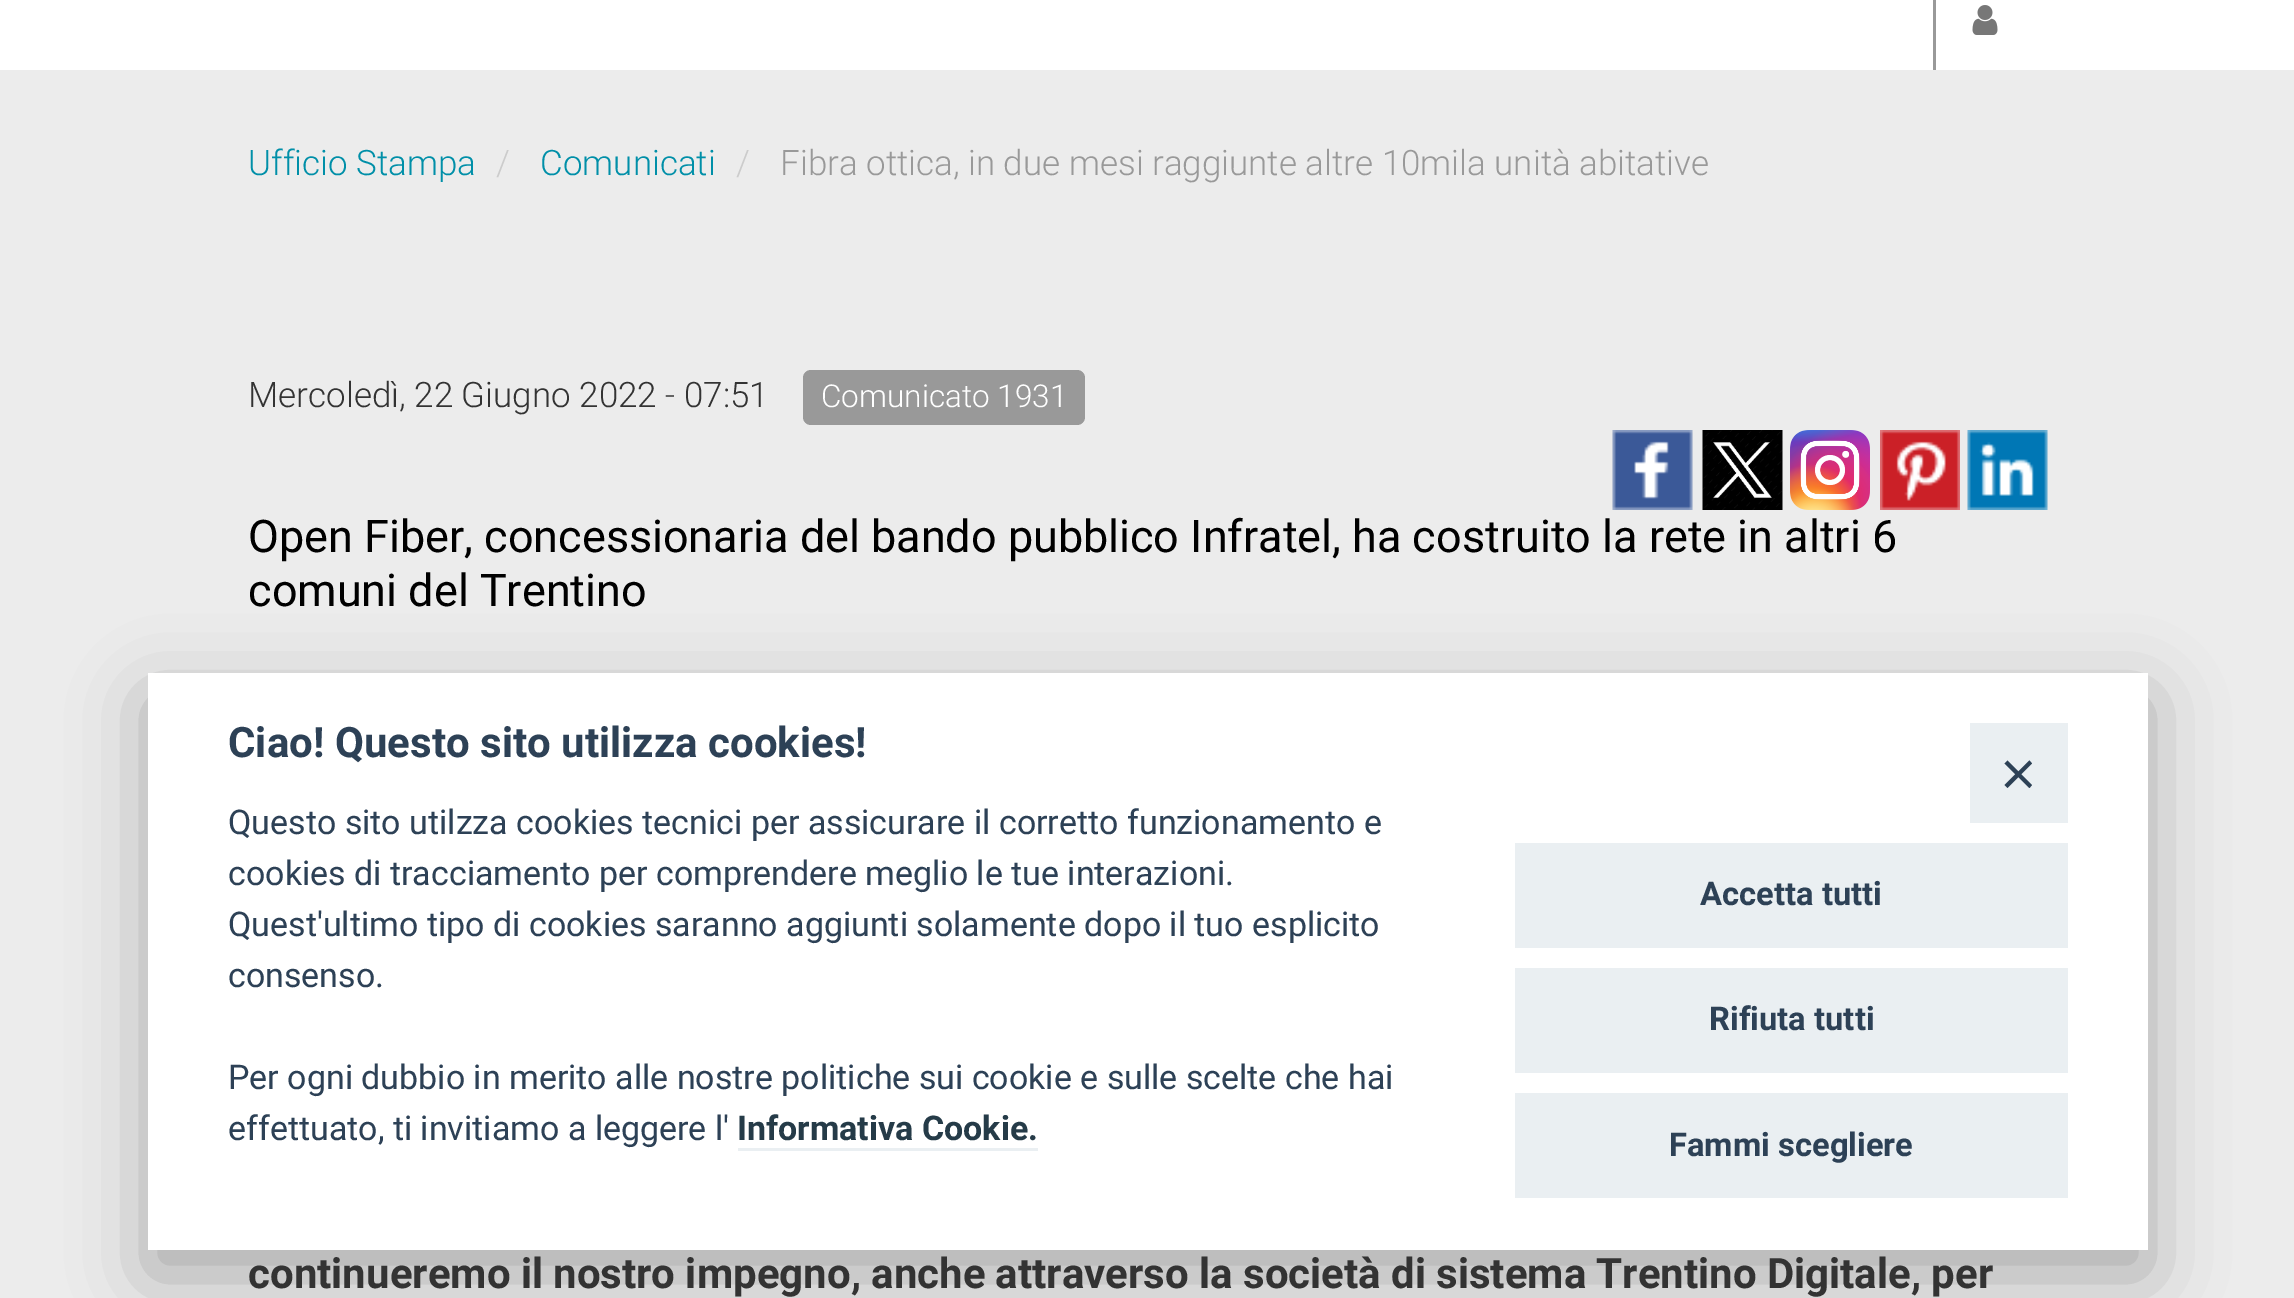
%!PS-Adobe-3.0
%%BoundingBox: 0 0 2294 1298
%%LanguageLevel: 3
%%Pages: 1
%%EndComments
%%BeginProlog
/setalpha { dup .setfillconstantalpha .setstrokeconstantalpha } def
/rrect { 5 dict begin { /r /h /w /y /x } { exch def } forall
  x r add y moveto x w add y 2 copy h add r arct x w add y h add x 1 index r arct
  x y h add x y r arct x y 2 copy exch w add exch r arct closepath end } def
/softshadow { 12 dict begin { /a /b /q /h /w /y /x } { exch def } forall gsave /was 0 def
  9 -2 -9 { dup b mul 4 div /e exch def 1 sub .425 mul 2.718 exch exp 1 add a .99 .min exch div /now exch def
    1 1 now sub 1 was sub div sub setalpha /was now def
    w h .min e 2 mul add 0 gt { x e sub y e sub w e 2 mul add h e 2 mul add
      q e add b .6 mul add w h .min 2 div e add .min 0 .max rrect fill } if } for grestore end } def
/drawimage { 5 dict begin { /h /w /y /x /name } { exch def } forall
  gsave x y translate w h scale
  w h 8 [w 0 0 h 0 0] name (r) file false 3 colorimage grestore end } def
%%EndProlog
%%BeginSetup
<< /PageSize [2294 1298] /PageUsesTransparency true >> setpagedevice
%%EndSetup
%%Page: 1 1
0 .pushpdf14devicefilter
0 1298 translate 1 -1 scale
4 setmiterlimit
0.925 setgray
0 0 2294 1298 rectfill
1 setgray
0 0 2294 70 rectfill
0.6 setgray
1933 0 3 70 rectfill
(images/1.raw) 1972 5 26 30 drawimage
803 370 282 55 8 rrect fill
(images/2.raw) 1612 430 81 80 drawimage
(images/3.raw) 1702 430 81 80 drawimage
(images/4.raw) 1790 430 80 80 drawimage
(images/5.raw) 1880 430 80 80 drawimage
(images/6.raw) 1967 430 81 80 drawimage
0.008 0.008 0.012 setrgbcolor
148 698 2000 577 0 37.5 0.28 softshadow
1 setgray
148 673 2000 577 rectfill
0.918 0.937 0.949 setrgbcolor
738 1148 300 3 rectfill
1970 723 98 100 rectfill
0.176 0.255 0.337 setrgbcolor
newpath 2029.5 760.5 moveto 2032 763.5 lineto 2007.5 788 lineto 2004.5 785 lineto closepath fill
newpath 2004.5 763.5 moveto 2007.5 760.5 lineto 2032 785 lineto 2029.5 788 lineto closepath fill
0.918 0.937 0.949 setrgbcolor
1515 843 553 105 rectfill
1515 968 553 105 rectfill
1515 1093 553 105 rectfill
/Roboto-Light [35 0 0 -35 0 0] selectfont
0 0.561 0.659 setrgbcolor
248 175 moveto (Ufficio Stampa) show
0.8 setgray
496 175 moveto (/) show
0 0.561 0.659 setrgbcolor
540 175 moveto (Comunicati) show
0.8 setgray
736 175 moveto (/) show
0.6 setgray
780 175 moveto (Fibra ottica, in due mesi raggiunte altre 10mila unità abitative) show
0.2 setgray
248 407 moveto (Mercoledì, 22 Giugno 2022 - 07:51) show
/Roboto-Light [31.5 0 0 -31.5 0 0] selectfont
1 setgray
821 407 moveto (Comunicato 1931) show
/Roboto-Regular [45 0 0 -45 0 0] selectfont
0 setgray
248 552 moveto (Open Fiber, concessionaria del bando pubblico Infratel, ha costruito la rete in altri 6) show
248 606 moveto (comuni del Trentino) show
/Roboto-Bold [42 0 0 -42 0 0] selectfont
0.2 setgray
248 1288 moveto -0.2 0 32 (continueremo il nostro impegno, anche attraverso la società di sistema Trentino Digitale, per) widthshow
0.176 0.255 0.337 setrgbcolor
228 757 moveto (Ciao! Questo sito utilizza cookies!) show
/Roboto-Regular [34 0 0 -34 0 0] selectfont
228 834 moveto (Questo sito utilzza cookies tecnici per assicurare il corretto funzionamento e) show
228 885 moveto (cookies di tracciamento per comprendere meglio le tue interazioni.) show
228 936 moveto (Quest'ultimo tipo di cookies saranno aggiunti solamente dopo il tuo esplicito) show
228 987 moveto (consenso.) show
228 1089 moveto (Per ogni dubbio in merito alle nostre politiche sui cookie e sulle scelte che hai) show
228 1140 moveto (effettuato, ti invitiamo a leggere l') show
/Roboto-Bold [34 0 0 -34 0 0] selectfont
0.145 0.231 0.282 setrgbcolor
737 1140 moveto (Informativa Cookie.) show
/Roboto-Bold [32.75 0 0 -32.75 0 0] selectfont
0.176 0.255 0.337 setrgbcolor
1700 905 moveto (Accetta tutti) show
1709 1030 moveto (Rifiuta tutti) show
1669 1156 moveto (Fammi scegliere) show
.poppdf14devicefilter showpage
%%EOF
